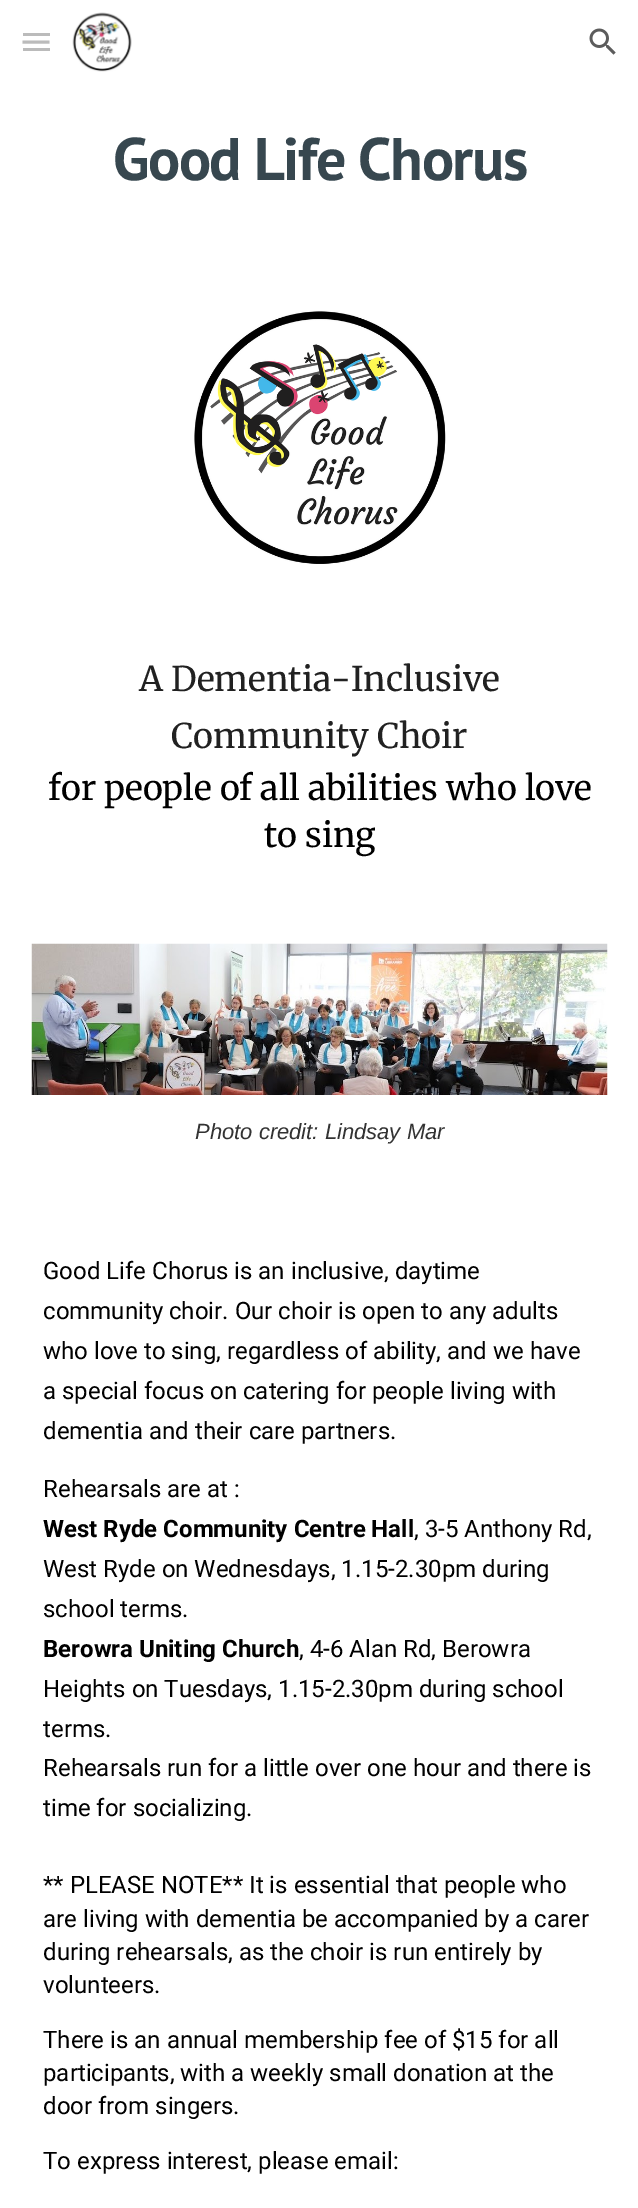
%!PS-Adobe-3.0
%%BoundingBox: 0 0 638 2208
%%LanguageLevel: 3
%%Pages: 1
%%EndComments
%%BeginProlog
/setalpha { dup .setfillconstantalpha .setstrokeconstantalpha } def
/drawimage { 5 dict begin { /h /w /y /x /name } { exch def } forall
  gsave x y translate w h scale
  w h 8 [w 0 0 h 0 0] name (r) file false 3 colorimage grestore end } def
%%EndProlog
%%BeginSetup
<< /PageSize [638 2208] /PageUsesTransparency true >> setpagedevice
%%EndSetup
%%Page: 1 1
0 .pushpdf14devicefilter
0 2208 translate 1 -1 scale
4 setmiterlimit
1 setgray
0 0 638 2208 rectfill
0.698 setgray
23 33 27 3 rectfill
3 setlinewidth
newpath 22.5 42 moveto 49.5 42 lineto stroke
23 48 27 3 rectfill
0.12 setalpha
1 setgray
22 33 28 18 rectfill
1 setalpha
(images/1.raw) 72 12 60 60 drawimage
(images/2.raw) 589 28 27 27 drawimage
(images/3.raw) 194 311 252 253 drawimage
(images/4.raw) 31 943 577 152 drawimage
/PTSans-Bold [60 0 0 -60 0 0] selectfont
0.216 0.278 0.31 setrgbcolor
113 180 moveto -1.5 0 (Good Life Chorus) ashow
/Merriweather-Regular [34 0 0 -34 0 0] selectfont
0.129 setgray
139 691 moveto (A Dementia-Inclusive) show
171 748 moveto (Community Choir) show
0 setgray
48 800 moveto (for people of all abilities who love) show
264 847 moveto (to sing) show
/LiberationSans-Italic [22 0 0 -22 0 0] selectfont
0.2 setgray
195 1139 moveto (Photo credit: Lindsay Mar) show
/Roboto-Regular [24 0 0 -24 0 0] selectfont
0 setgray
43 1279 moveto (Good Life Chorus is an inclusive, daytime) show
43 1319 moveto (community choir. Our choir is open to any adults) show
43 1359 moveto (who love to sing, regardless of ability, and we have) show
43 1399 moveto (a special focus on catering for people living with) show
43 1439 moveto (dementia and their care partners.) show
43 1497 moveto (Rehearsals are at :) show
/Roboto-Bold [24 0 0 -24 0 0] selectfont
43 1537 moveto (West Ryde Community Centre Hall) show
/Roboto-Regular [24 0 0 -24 0 0] selectfont
414 1537 moveto (, 3-5 Anthony Rd,) show
43 1577 moveto (West Ryde on Wednesdays, 1.15-2.30pm during) show
43 1617 moveto (school terms.) show
/Roboto-Bold [24 0 0 -24 0 0] selectfont
43 1657 moveto (Berowra Uniting Church) show
/Roboto-Regular [24 0 0 -24 0 0] selectfont
299 1657 moveto (, 4-6 Alan Rd, Berowra) show
43 1697 moveto (Heights on Tuesdays, 1.15-2.30pm during school) show
43 1737 moveto (terms.) show
43 1776 moveto (Rehearsals run for a little over one hour and there is) show
43 1816 moveto (time for socializing.) show
43 1893 moveto (** PLEASE NOTE** It is essential that people who) show
43 1927 moveto (are living with dementia be accompanied by a carer) show
43 1960 moveto (during rehearsals, as the choir is run entirely by) show
43 1993 moveto (volunteers.) show
43 2048 moveto (There is an annual membership fee of $15 for all) show
43 2081 moveto (participants, with a weekly small donation at the) show
43 2114 moveto (door from singers.) show
43 2169 moveto (To express interest, please email:) show
.poppdf14devicefilter showpage
%%EOF
